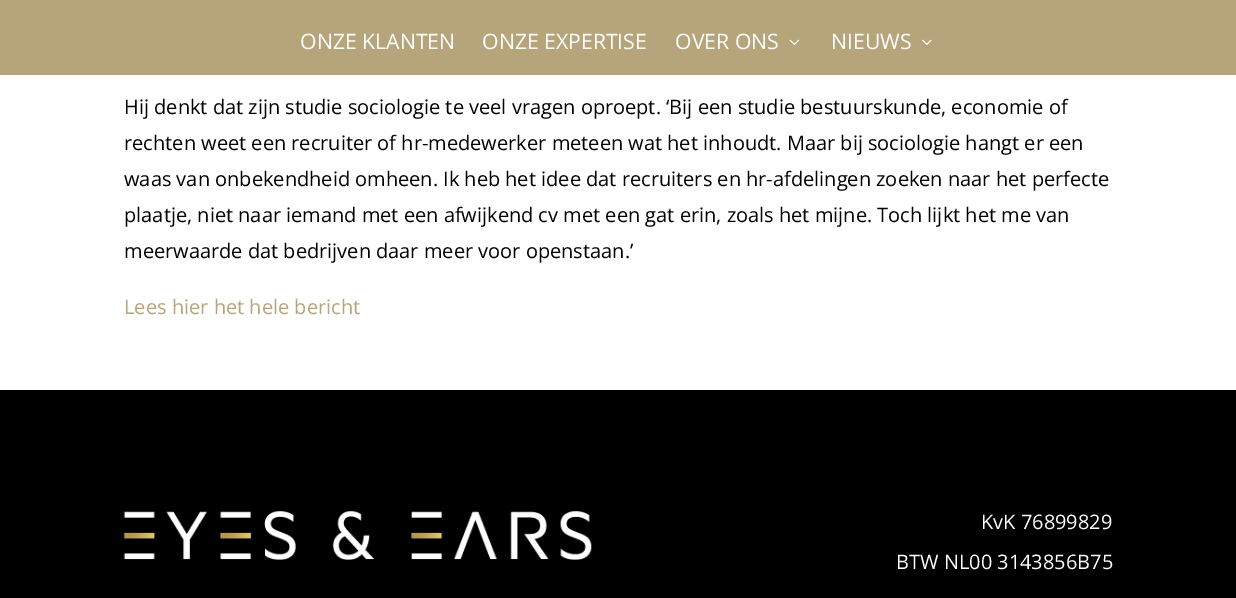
%!PS-Adobe-3.0
%%BoundingBox: 0 0 1236 598
%%LanguageLevel: 3
%%Pages: 1
%%EndComments
%%BeginProlog
/drawimage { 5 dict begin { /h /w /y /x /name } { exch def } forall
  gsave x y translate w h scale
  w h 8 [w 0 0 h 0 0] name (r) file false 3 colorimage grestore end } def
%%EndProlog
%%BeginSetup
<< /PageSize [1236 598] >> setpagedevice
%%EndSetup
%%Page: 1 1
0 598 translate 1 -1 scale
4 setmiterlimit
1 setgray
0 0 1236 598 rectfill
0.714 0.643 0.478 setrgbcolor
0 0 1236 75 rectfill
(images/1.raw) 789 39 10 6 drawimage
(images/2.raw) 922 39 10 6 drawimage
0 setgray
0 390 1236 208 rectfill
(images/3.raw) 123 511 469 49 drawimage
/OpenSans-Regular [21.25 0 0 -21.25 0 0] selectfont
1 setgray
300 49 moveto (ONZE KLANTEN) show
482 49 moveto (ONZE EXPERTISE) show
675 49 moveto (OVER ONS) show
831 49 moveto (NIEUWS) show
/OpenSans-Regular [20 0 0 -20 0 0] selectfont
0 setgray
124 114 moveto (Hij denkt dat zijn studie sociologie te veel vragen oproept. ‘Bij een studie bestuurskunde, economie of) show
124 150 moveto (rechten weet een recruiter of hr-medewerker meteen wat het inhoudt. Maar bij sociologie hangt er een) show
124 186 moveto (waas van onbekendheid omheen. Ik heb het idee dat recruiters en hr-afdelingen zoeken naar het perfecte) show
124 222 moveto (plaatje, niet naar iemand met een afwijkend cv met een gat erin, zoals het mijne. Toch lijkt het me van) show
124 258 moveto (meerwaarde dat bedrijven daar meer voor openstaan.’) show
0.714 0.643 0.478 setrgbcolor
124 314 moveto (Lees hier het hele bericht) show
1 setgray
981 529 moveto (KvK 76899829) show
896 569 moveto (BTW NL00 3143856B75) show
showpage
%%EOF
